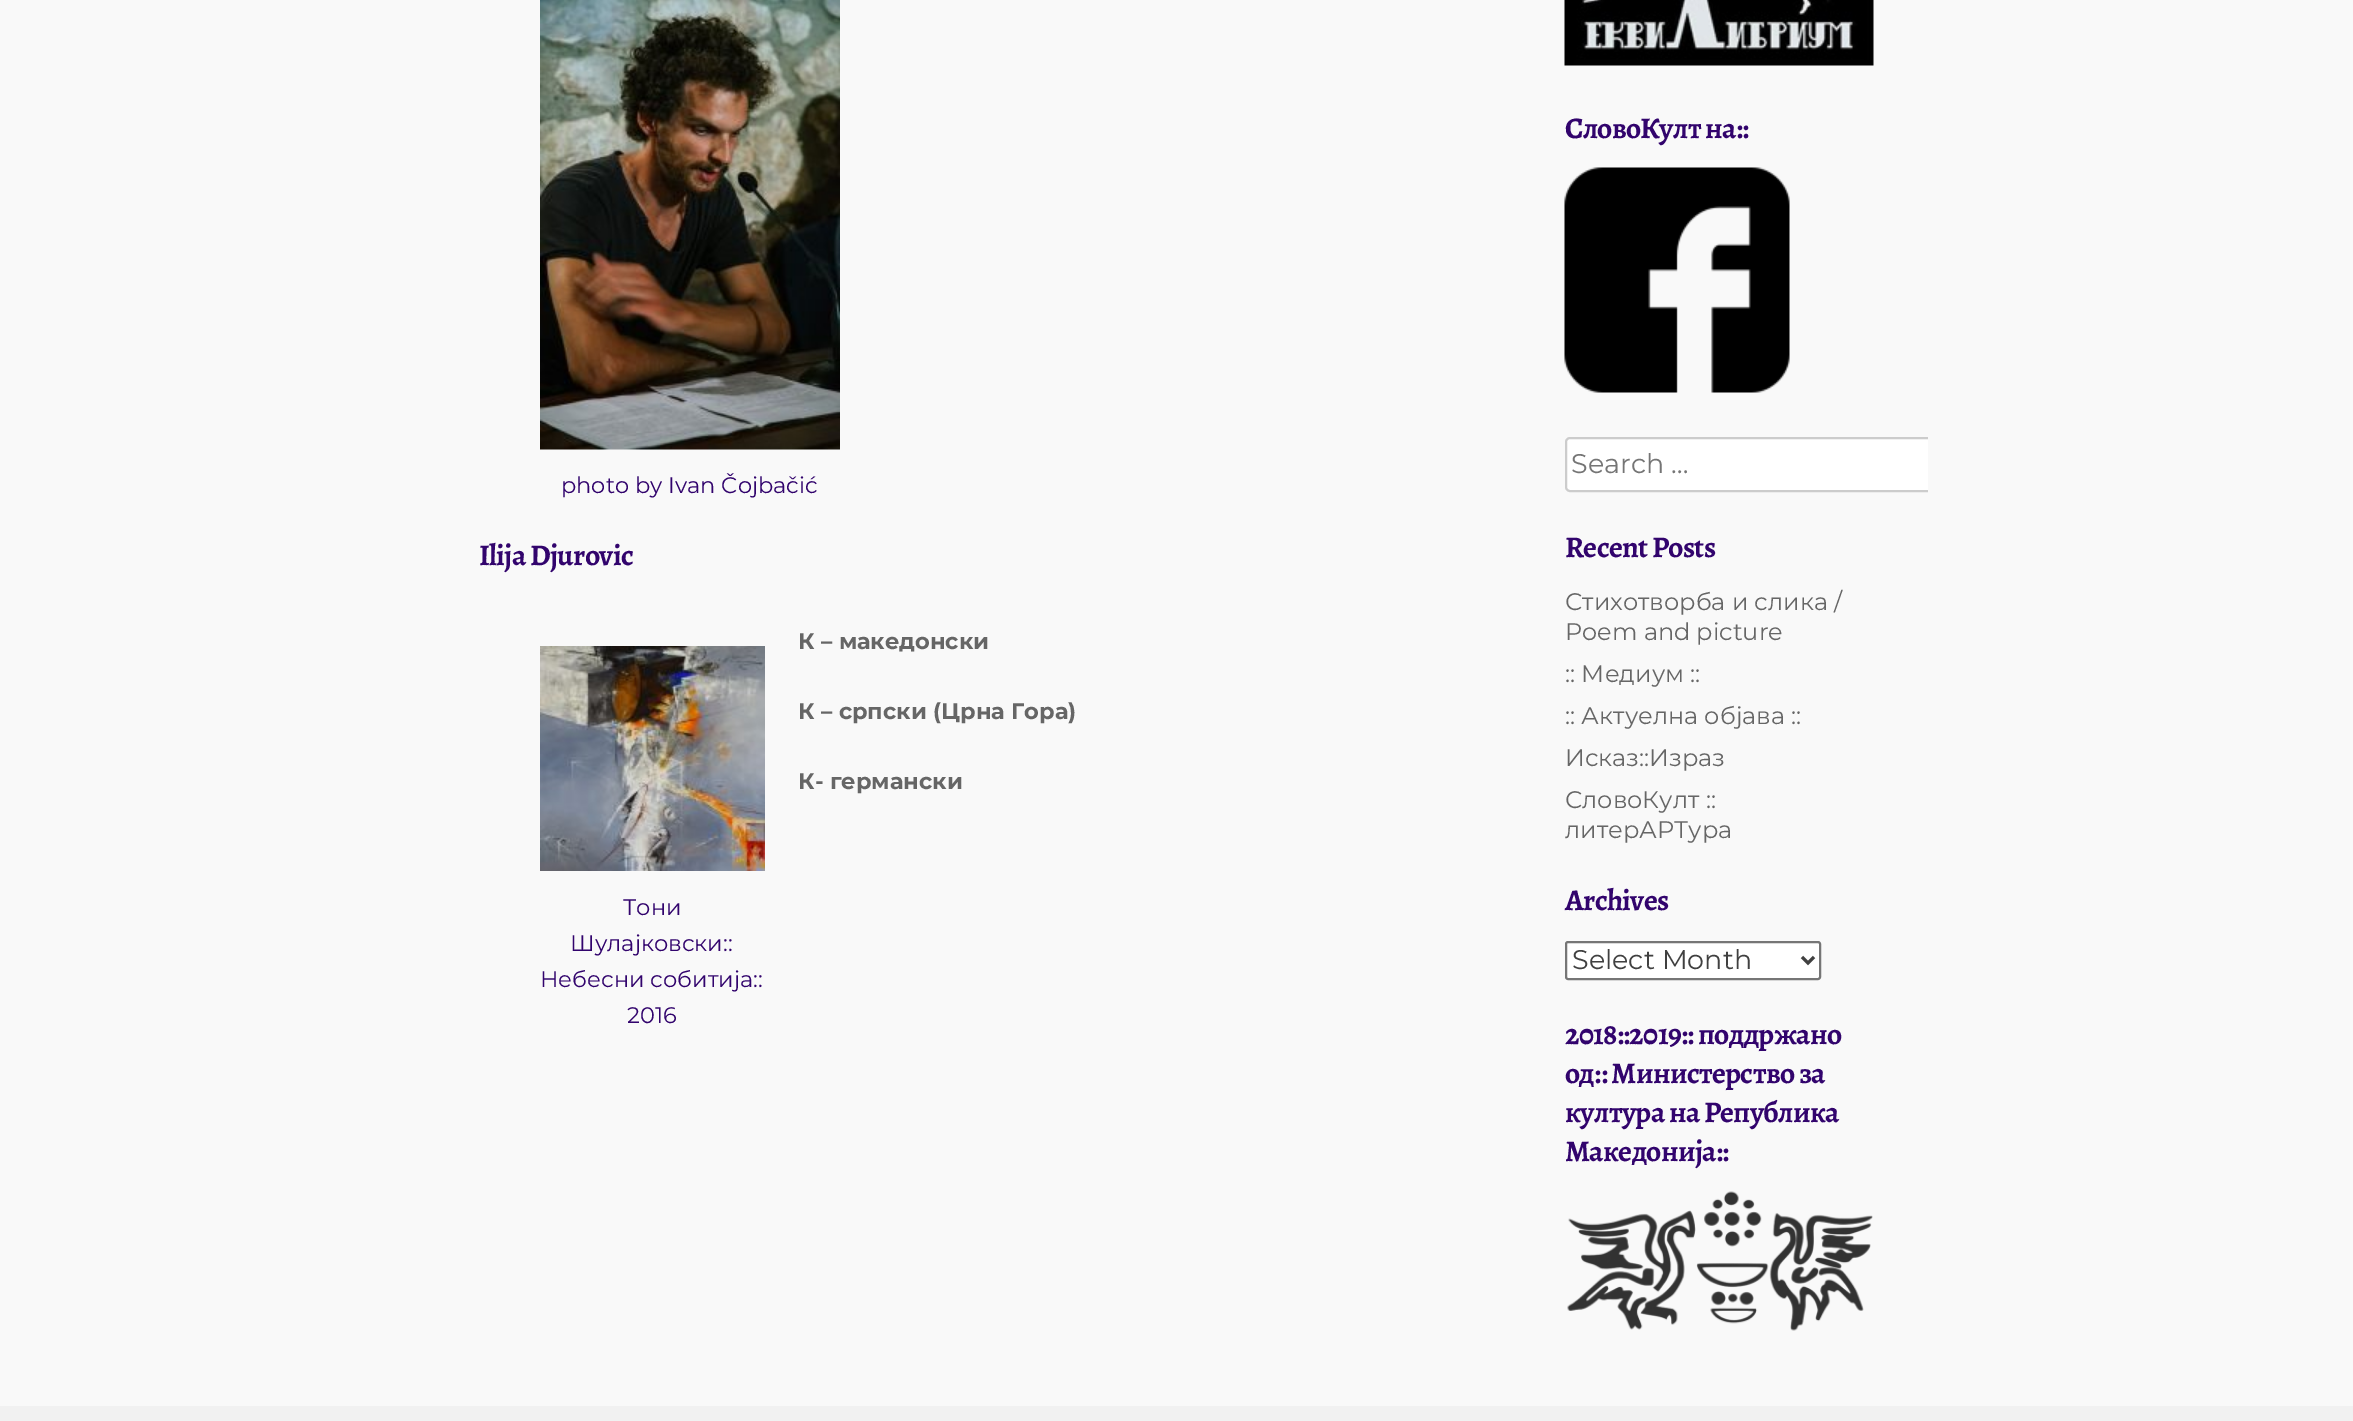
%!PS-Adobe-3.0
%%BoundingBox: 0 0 2353 1421
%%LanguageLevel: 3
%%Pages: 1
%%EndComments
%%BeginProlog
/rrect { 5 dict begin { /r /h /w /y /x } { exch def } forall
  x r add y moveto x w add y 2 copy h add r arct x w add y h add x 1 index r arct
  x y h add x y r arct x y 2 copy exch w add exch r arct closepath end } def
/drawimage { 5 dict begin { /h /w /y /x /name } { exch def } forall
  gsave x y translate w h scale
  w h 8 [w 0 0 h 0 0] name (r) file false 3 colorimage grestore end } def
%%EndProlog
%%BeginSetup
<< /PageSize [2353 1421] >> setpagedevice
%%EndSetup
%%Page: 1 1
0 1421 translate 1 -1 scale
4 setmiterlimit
0.976 setgray
0 0 2353 1421 rectfill
(images/1.raw) 540 0 300 450 drawimage
(images/2.raw) 540 646 225 225 drawimage
(images/3.raw) 1564 0 310 66 drawimage
(images/4.raw) 1564 167 226 226 drawimage
1 setgray
newpath 1570 437 moveto 1928 437 lineto 1928 492 lineto 1570 492 lineto 1567 492 1565 490 1565 487 curveto 1565 442 lineto 1565 439 1567 437 1570 437 curveto closepath fill
gsave
428 0 1500 1376 rectclip
0.8 setgray
2 setlinewidth
1566 438 379 53 4 rrect stroke
grestore
1566 942 254 37 2 rrect gsave fill grestore
0.463 setgray
2 setlinewidth
stroke
0.251 setgray
3 setlinewidth
newpath 1802 957 moveto 1808 963 lineto 1814 957 lineto stroke
(images/5.raw) 1567 1191 306 140 drawimage
0.945 setgray
0 1406 2353 15 rectfill
/Montserrat-Regular [22.5 0 0 -22.5 0 0] selectfont
0.196 0.016 0.427 setrgbcolor
561 493 moveto (photo by Ivan Čojbačić) show
/Alegreya-Bold [30 0 0 -30 0 0] selectfont
479 565 moveto -0.75 0 (Ilija Djurovic) ashow
/Montserrat-Bold [22.5 0 0 -22.5 0 0] selectfont
0.4 setgray
798 649 moveto (К – македонски) show
798 719 moveto (К – српски \(Црна Гора\)) show
798 789 moveto (К- германски) show
/Montserrat-Regular [22.5 0 0 -22.5 0 0] selectfont
0.196 0.016 0.427 setrgbcolor
623 915 moveto (Тони) show
570 951 moveto (Шулајковски::) show
540 987 moveto (Небесни собитија::) show
627 1023 moveto (2016) show
/Alegreya-Bold [30 0 0 -30 0 0] selectfont
1565 138 moveto -0.75 0 (СловоКулт на::) ashow
/Montserrat-Regular [27 0 0 -27 0 0] selectfont
0.459 setgray
1571 473 moveto (Search …) show
/Alegreya-Bold [30 0 0 -30 0 0] selectfont
0.196 0.016 0.427 setrgbcolor
1565 557 moveto -0.75 0 (Recent Posts) ashow
/Montserrat-Regular [24 0 0 -24 0 0] selectfont
0.4 setgray
1565 610 moveto (Стихотворба и слика /) show
1565 640 moveto (Poem and picture) show
1565 682 moveto (:: Медиум ::) show
1565 724 moveto (:: Актуелна објава ::) show
1565 766 moveto (Исказ::Израз) show
1565 808 moveto (СловоКулт ::) show
1565 838 moveto (литерАРТура) show
/Alegreya-Bold [30 0 0 -30 0 0] selectfont
0.196 0.016 0.427 setrgbcolor
1565 910 moveto -0.75 0 (Archives) ashow
/Montserrat-Regular [27 0 0 -27 0 0] selectfont
0.251 setgray
1572 969 moveto (Select Month) show
/Alegreya-Bold [30 0 0 -30 0 0] selectfont
0.196 0.016 0.427 setrgbcolor
1565 1044 moveto -0.75 0 (2018::2019:: поддржано) ashow
1565 1083 moveto -0.75 0 (од:: Министерство за) ashow
1565 1122 moveto -0.75 0 (култура на Република) ashow
1565 1161 moveto -0.75 0 (Македонија::) ashow
showpage
%%EOF
